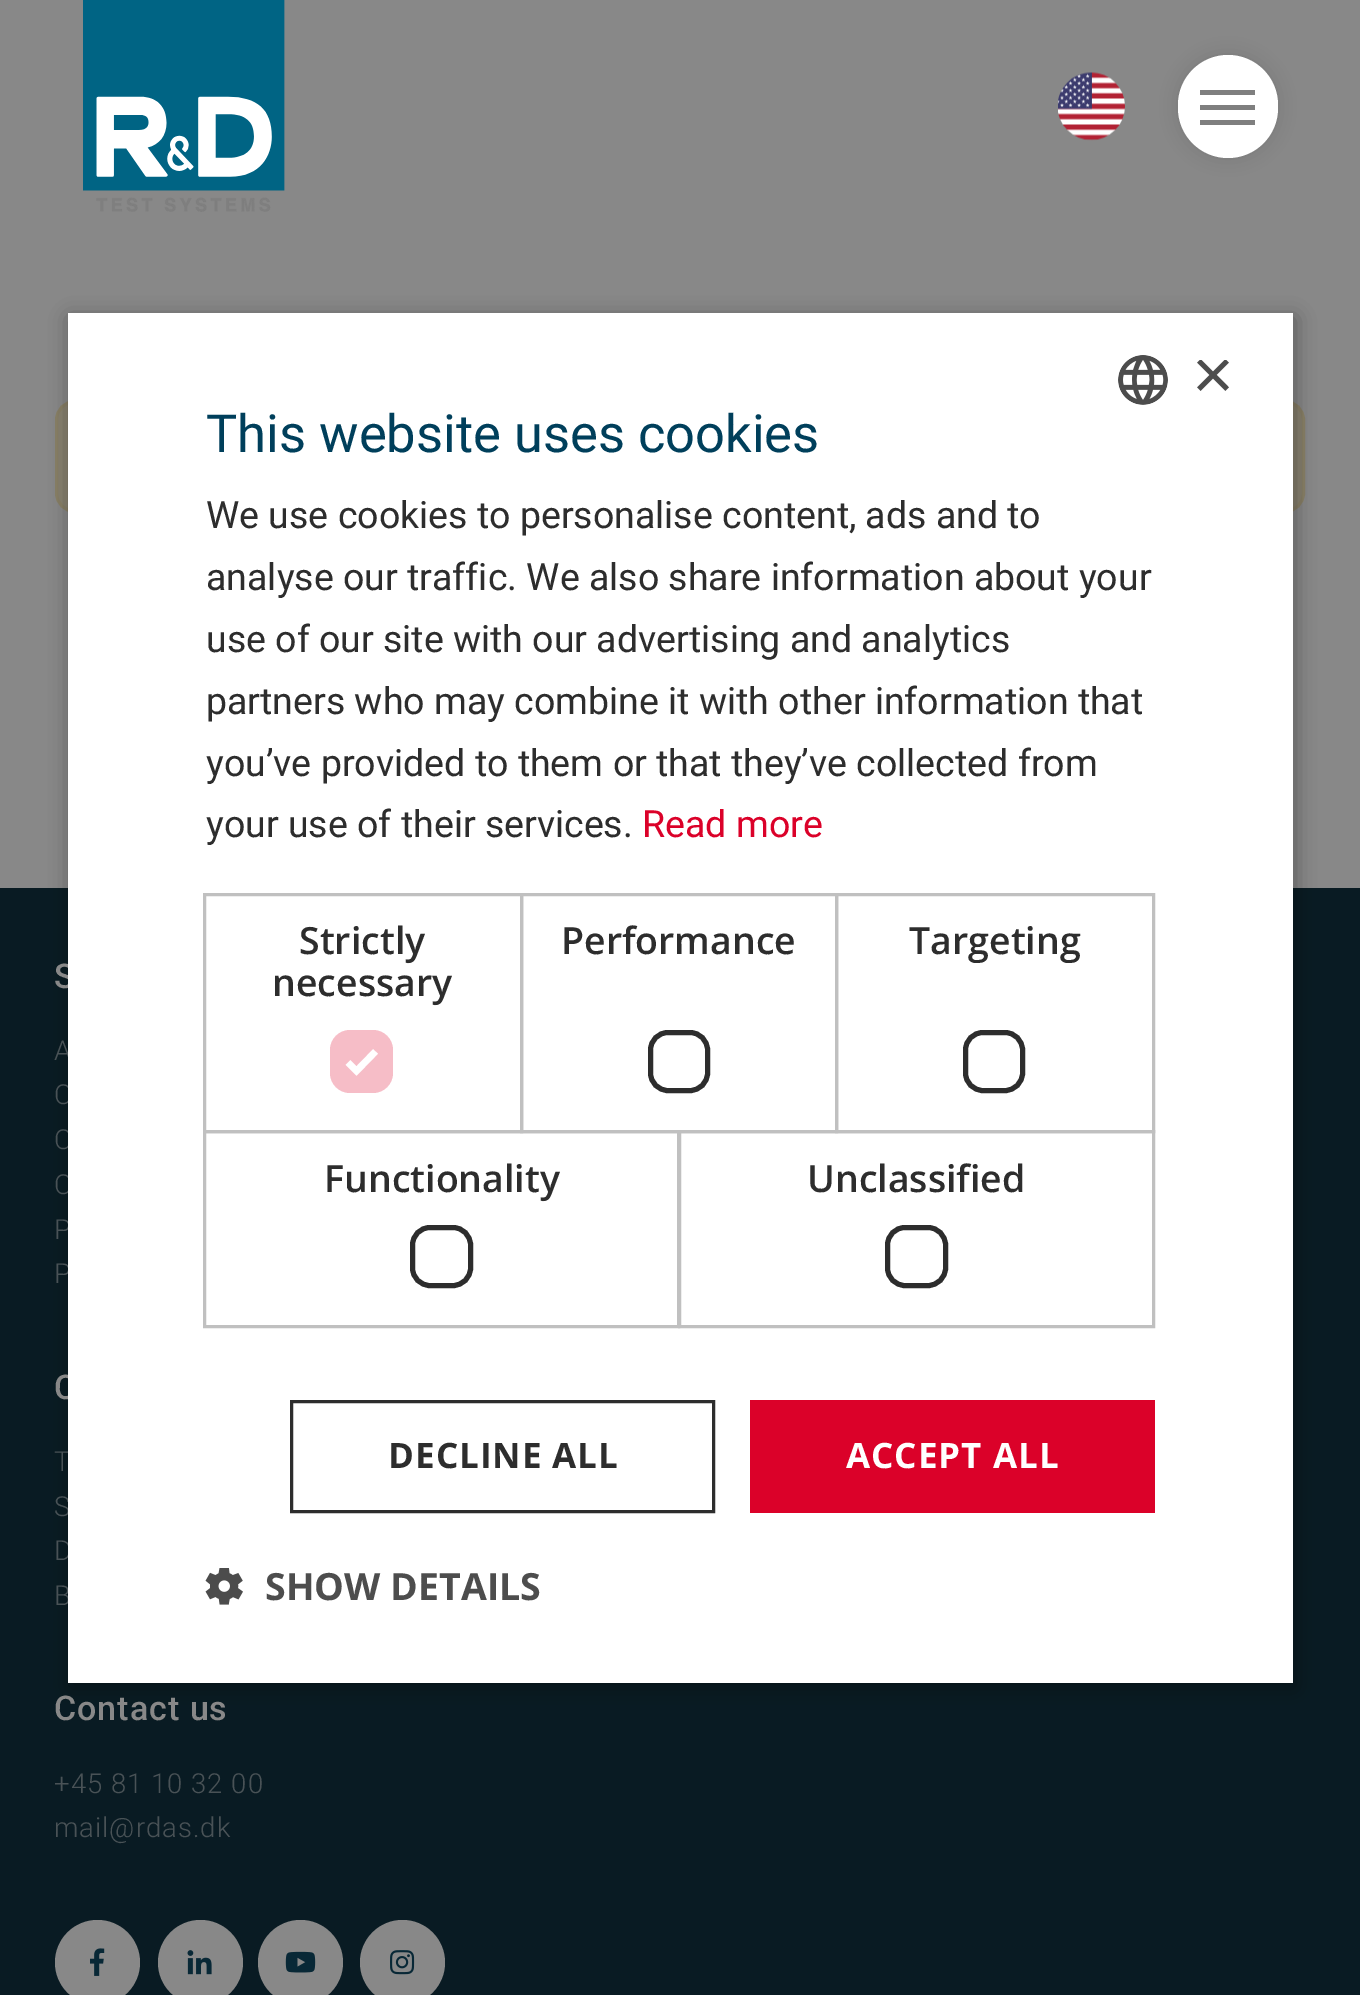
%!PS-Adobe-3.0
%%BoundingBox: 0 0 1360 1995
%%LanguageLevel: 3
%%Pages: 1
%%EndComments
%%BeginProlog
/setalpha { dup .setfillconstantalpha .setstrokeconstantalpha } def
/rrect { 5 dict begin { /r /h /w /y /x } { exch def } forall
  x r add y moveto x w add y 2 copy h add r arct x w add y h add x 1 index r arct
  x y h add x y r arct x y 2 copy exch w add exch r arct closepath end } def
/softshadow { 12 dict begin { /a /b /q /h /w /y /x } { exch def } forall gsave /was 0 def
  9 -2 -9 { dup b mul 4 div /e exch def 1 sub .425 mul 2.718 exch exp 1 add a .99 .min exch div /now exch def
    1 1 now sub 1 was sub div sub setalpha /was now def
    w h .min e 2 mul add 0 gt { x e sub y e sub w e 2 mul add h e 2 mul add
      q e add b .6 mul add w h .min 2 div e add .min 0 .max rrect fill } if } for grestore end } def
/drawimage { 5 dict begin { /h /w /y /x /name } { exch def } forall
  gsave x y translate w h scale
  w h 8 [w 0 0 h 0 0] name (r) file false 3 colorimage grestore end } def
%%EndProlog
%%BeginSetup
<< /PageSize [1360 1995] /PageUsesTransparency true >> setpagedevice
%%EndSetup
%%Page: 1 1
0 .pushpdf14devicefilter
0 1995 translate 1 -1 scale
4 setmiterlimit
0.533 setgray
0 0 1360 1995 rectfill
(images/1.raw) 83 0 202 212 drawimage
(images/2.raw) 1058 72 67 69 drawimage
0 setgray
1178 55 100 103 50 8.5 0.1 softshadow
1 setgray
1178 55 100 103 50 rrect fill
0.498 setgray
1200 105 55 5 rectfill
1200 90 55 5 rectfill
1200 120 55 5 rectfill
0.533 0.51 0.435 setrgbcolor
56.5 401.5 1247 110 18.5 rrect gsave fill grestore
0.533 0.502 0.4 setrgbcolor
3 setlinewidth
stroke
0.035 0.106 0.137 setrgbcolor
0 888 1360 1107 rectfill
0.533 setgray
newpath 97.5 1962.5 42.5 0 360 arc closepath fill
(images/3.raw) 90 1948 15 28 drawimage
newpath 200.5 1962.5 42.5 0 360 arc closepath fill
(images/4.raw) 187 1950 25 25 drawimage
newpath 300.5 1962.5 42.5 0 360 arc closepath fill
(images/5.raw) 285 1951 31 22 drawimage
newpath 402.5 1962.5 42.5 0 360 arc closepath fill
(images/6.raw) 390 1950 25 25 drawimage
0 setgray
70 318 1225 1370 0 10 0.35 softshadow
/Roboto-Medium [34 0 0 -34 0 0] selectfont
0.533 setgray
54 988 moveto 1 0 (S) ashow
/Roboto-Light [27.5 0 0 -27.5 0 0] selectfont
0.286 0.322 0.337 setrgbcolor
54 1060 moveto 1 0 (A) ashow
54 1104 moveto 1 0 (C) ashow
54 1149 moveto 1 0 (C) ashow
54 1194 moveto 1 0 (C) ashow
54 1239 moveto 1 0 (P) ashow
54 1283 moveto 1 0 (P) ashow
/Roboto-Medium [34 0 0 -34 0 0] selectfont
0.533 setgray
54 1399 moveto 1 0 (C) ashow
/Roboto-Light [27.5 0 0 -27.5 0 0] selectfont
0.286 0.322 0.337 setrgbcolor
54 1471 moveto 1 0 (T) ashow
54 1516 moveto 1 0 (S) ashow
54 1560 moveto 1 0 (D) ashow
54 1605 moveto 1 0 (B) ashow
/Roboto-Medium [34 0 0 -34 0 0] selectfont
0.533 setgray
54 1720 moveto 1 0 (Contact us) ashow
/Roboto-Light [27.5 0 0 -27.5 0 0] selectfont
0.286 0.322 0.337 setrgbcolor
54 1793 moveto 1 0 (+45 81 10 32 00) ashow
54 1837 moveto 1 0 (mail@rdas.dk) ashow
1 setgray
68 313 1225 1370 rectfill
(images/7.raw) 1118 355 50 50 drawimage
gsave
1193 360 37 38 rectclip
/LiberationSans-Regular [72 0 0 -72 0 0] selectfont
0.302 setgray
1192 399 moveto (×) show
grestore
/Roboto-Regular [52.5 0 0 -52.5 0 0] selectfont
0 0.247 0.357 setrgbcolor
206 452 moveto (This website uses cookies) show
/Roboto-Regular [37.5 0 0 -37.5 0 0] selectfont
0.176 setgray
206 528 moveto (We use cookies to personalise content, ads and to) show
206 590 moveto (analyse our traffic. We also share information about your) show
206 652 moveto (use of our site with our advertising and analytics) show
206 714 moveto (partners who may combine it with other information that) show
206 776 moveto (you’ve provided to them or that they’ve collected from) show
206 837 moveto (your use of their services.) show
0.859 0.004 0.161 setrgbcolor
642 837 moveto (Read more) show
0.753 setgray
204.5 894.5 317 237 rectstroke
/OpenSans-SemiBold [37.5 0 0 -37.5 0 0] selectfont
0.176 setgray
299 954 moveto (Strictly) show
272 996 moveto (necessary) show
0.965 0.741 0.78 setrgbcolor
330 1030 63 63 20 rrect fill
1 setgray
6.6 setlinewidth
newpath 348 1062.5 moveto 356.5 1071 lineto 375.5 1051.5 lineto stroke
0.753 setgray
3 setlinewidth
521.5 894.5 315 237 rectstroke
0.176 setgray
561 954 moveto (Performance) show
5 setlinewidth
650.5 1032.5 57 58 17.5 rrect stroke
0.753 setgray
3 setlinewidth
836.5 894.5 317 237 rectstroke
0.176 setgray
909 954 moveto (Targeting) show
5 setlinewidth
965.5 1032.5 57 58 17.5 rrect stroke
0.753 setgray
3 setlinewidth
204.5 1131.5 474 195 rectstroke
0.176 setgray
324 1192 moveto (Functionality) show
5 setlinewidth
412.5 1227.5 58 58 17.5 rrect stroke
0.753 setgray
3 setlinewidth
679.5 1131.5 474 195 rectstroke
0.176 setgray
807 1192 moveto (Unclassified) show
5 setlinewidth
887.5 1227.5 58 58 17.5 rrect stroke
3 setlinewidth
291.5 1401.5 422 110 rectstroke
/OpenSans-Bold [35 0 0 -35 0 0] selectfont
388 1468 moveto 1 0 (DECLINE ALL) ashow
0.859 0.004 0.161 setrgbcolor
750 1400 405 113 rectfill
1 setgray
846 1468 moveto 1 0 (ACCEPT ALL) ashow
(images/8.raw) 205 1568 38 37 drawimage
/OpenSans-Bold [37.5 0 0 -37.5 0 0] selectfont
0.302 setgray
265 1600 moveto (SHOW DETAILS) show
.poppdf14devicefilter showpage
%%EOF
